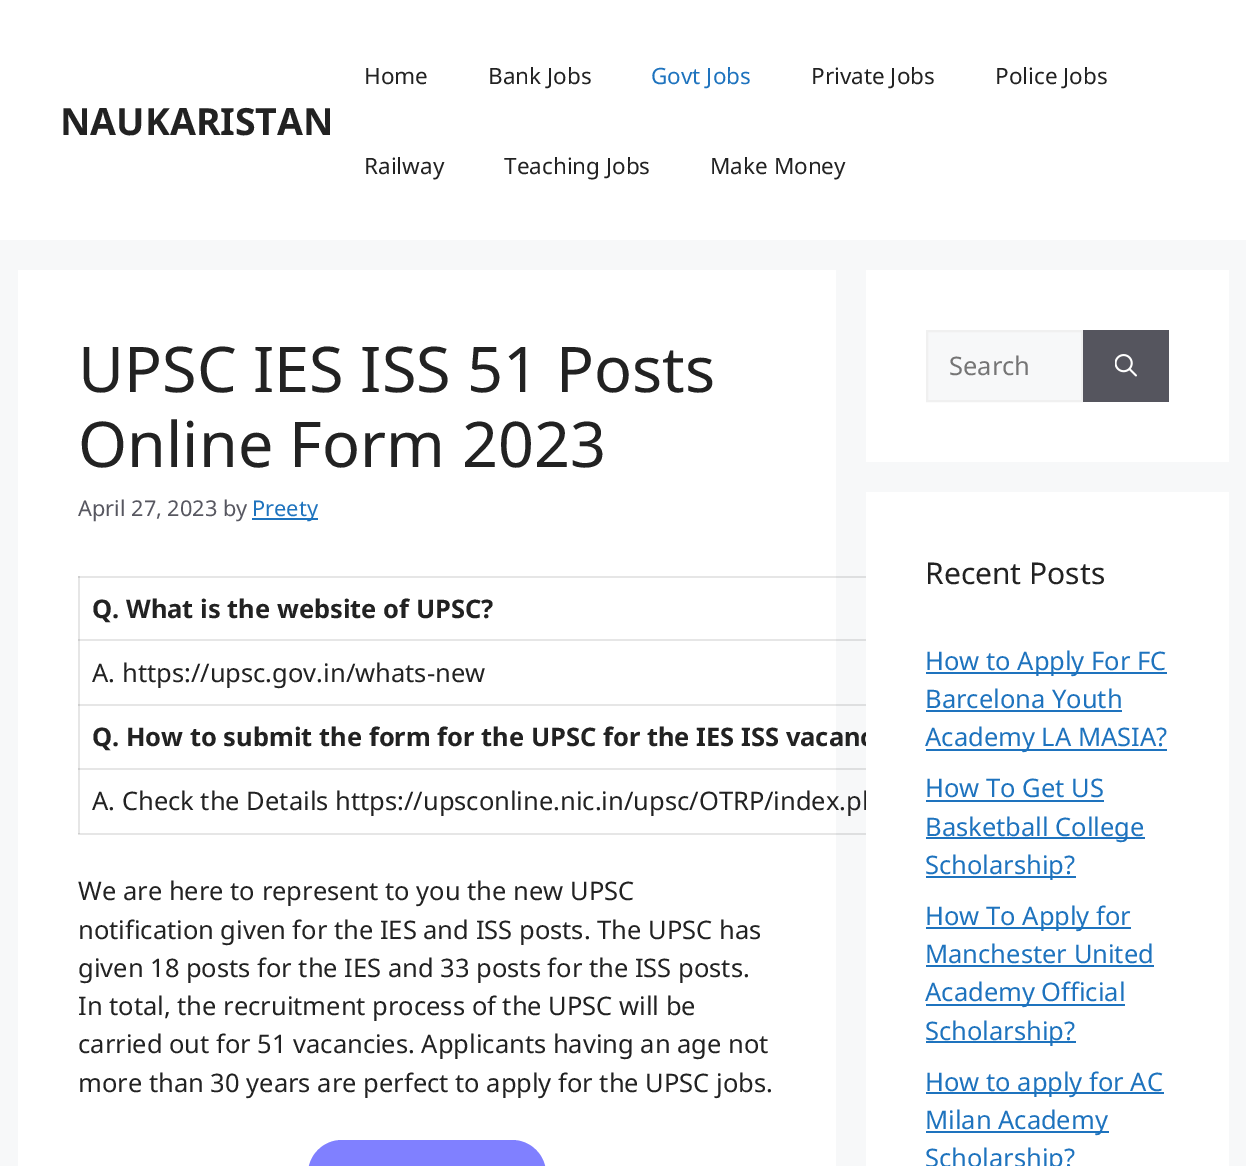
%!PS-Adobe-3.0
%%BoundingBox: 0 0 1246 1166
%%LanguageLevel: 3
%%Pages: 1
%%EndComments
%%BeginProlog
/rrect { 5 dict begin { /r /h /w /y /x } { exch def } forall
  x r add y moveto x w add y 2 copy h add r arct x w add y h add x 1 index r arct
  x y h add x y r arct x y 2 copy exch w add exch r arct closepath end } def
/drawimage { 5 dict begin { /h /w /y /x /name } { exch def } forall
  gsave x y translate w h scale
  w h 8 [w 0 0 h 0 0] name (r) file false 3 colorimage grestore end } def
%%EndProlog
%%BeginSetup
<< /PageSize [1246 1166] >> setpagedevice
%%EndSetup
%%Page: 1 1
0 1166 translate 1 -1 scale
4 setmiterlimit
0.969 0.973 0.976 setrgbcolor
0 0 1246 1166 rectfill
0.871 0.875 0.878 setrgbcolor
836 639 30 2 rectfill
836 704 30 2 rectfill
836 768 30 2 rectfill
836 833 30 2 rectfill
836 576 30 2 rectfill
1 setgray
0 0 1246 240 rectfill
18 270 818 896 rectfill
0.902 setgray
78 639 758 2 rectfill
78 704 758 2 rectfill
78 768 758 2 rectfill
78 833 758 2 rectfill
78 576 2 258 rectfill
0.812 setgray
78 639 2 2 rectfill
78 704 2 2 rectfill
78 768 2 2 rectfill
78 833 2 1 rectfill
0.902 setgray
78 576 758 2 rectfill
0.812 setgray
78 576 2 2 rectfill
0.118 0.451 0.745 setrgbcolor
252 518 66 2 rectfill
0.502 0.502 1 setrgbcolor
308 1140 238 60 34 rrect fill
1 setgray
866 270 363 192 rectfill
0.969 0.973 0.976 setrgbcolor
newpath 927 331 moveto 1082 331 lineto 1082 401 lineto 927 401 lineto closepath gsave fill grestore
0.941 setgray
2 setlinewidth
stroke
0.333 0.333 0.369 setrgbcolor
1083 330 86 72 rectfill
(images/1.raw) 1115 354 22 23 drawimage
/NotoSans-Bold [37.5 0 0 -37.5 0 0] selectfont
0.133 setgray
60 135 moveto (NAUKARISTAN) show
/NotoSans-Regular [22.5 0 0 -22.5 0 0] selectfont
364 84 moveto (Home) show
488 84 moveto (Bank Jobs) show
0.118 0.451 0.745 setrgbcolor
651 84 moveto (Govt Jobs) show
0.133 setgray
811 84 moveto (Private Jobs) show
995 84 moveto (Police Jobs) show
364 174 moveto (Railway) show
504 174 moveto (Teaching Jobs) show
710 174 moveto (Make Money) show
/NotoSans-Regular [63 0 0 -63 0 0] selectfont
78 392 moveto (UPSC IES ISS 51 Posts) show
78 467 moveto (Online Form 2023) show
/NotoSans-Regular [21.75 0 0 -21.75 0 0] selectfont
0.341 0.341 0.376 setrgbcolor
78 516 moveto (April 27, 2023 by) show
0.118 0.451 0.745 setrgbcolor
252 516 moveto (Preety) show
/NotoSans-Bold [25.5 0 0 -25.5 0 0] selectfont
0.133 setgray
92 618 moveto (Q. What is the website of UPSC?) show
/NotoSans-Regular [25.5 0 0 -25.5 0 0] selectfont
92 682 moveto (A. https://upsc.gov.in/whats-new) show
/NotoSans-Bold [25.5 0 0 -25.5 0 0] selectfont
92 746 moveto (Q. How to submit the form for the UPSC for the IES ISS vacanc) show
/NotoSans-Regular [25.5 0 0 -25.5 0 0] selectfont
92 810 moveto (A. Check the Details https://upsconline.nic.in/upsc/OTRP/index.ph) show
78 900 moveto (We are here to represent to you the new UPSC) show
78 939 moveto (notification given for the IES and ISS posts. The UPSC has) show
78 977 moveto (given 18 posts for the IES and 33 posts for the ISS posts.) show
78 1015 moveto (In total, the recruitment process of the UPSC will be) show
78 1053 moveto (carried out for 51 vacancies. Applicants having an age not) show
78 1092 moveto (more than 30 years are perfect to apply for the UPSC jobs.) show
0.459 setgray
949 375 moveto (Search) show
1 setgray
866 492 363 674 rectfill
/NotoSans-Regular [30 0 0 -30 0 0] selectfont
0.133 setgray
925 584 moveto (Recent Posts) show
0.118 0.451 0.745 setrgbcolor
926 672 241 2 rectfill
/NotoSans-Regular [25.5 0 0 -25.5 0 0] selectfont
925 670 moveto (How to Apply For FC) show
925 708 moveto (Barcelona Youth) show
926 710 196 2 rectfill
926 749 241 2 rectfill
925 746 moveto (Academy LA MASIA?) show
925 797 moveto (How To Get US) show
926 800 178 2 rectfill
926 837 219 2 rectfill
925 836 moveto (Basketball College) show
926 876 150 2 rectfill
925 874 moveto (Scholarship?) show
926 927 205 2 rectfill
925 925 moveto (How To Apply for) show
925 963 moveto (Manchester United) show
926 965 228 2 rectfill
926 1004 199 2 rectfill
925 1001 moveto (Academy Official) show
926 1041 150 2 rectfill
925 1040 moveto (Scholarship?) show
926 1092 238 2 rectfill
925 1091 moveto (How to apply for AC) show
926 1131 183 2 rectfill
925 1129 moveto (Milan Academy) show
925 1167 moveto (Scholarship?) show
showpage
%%EOF
